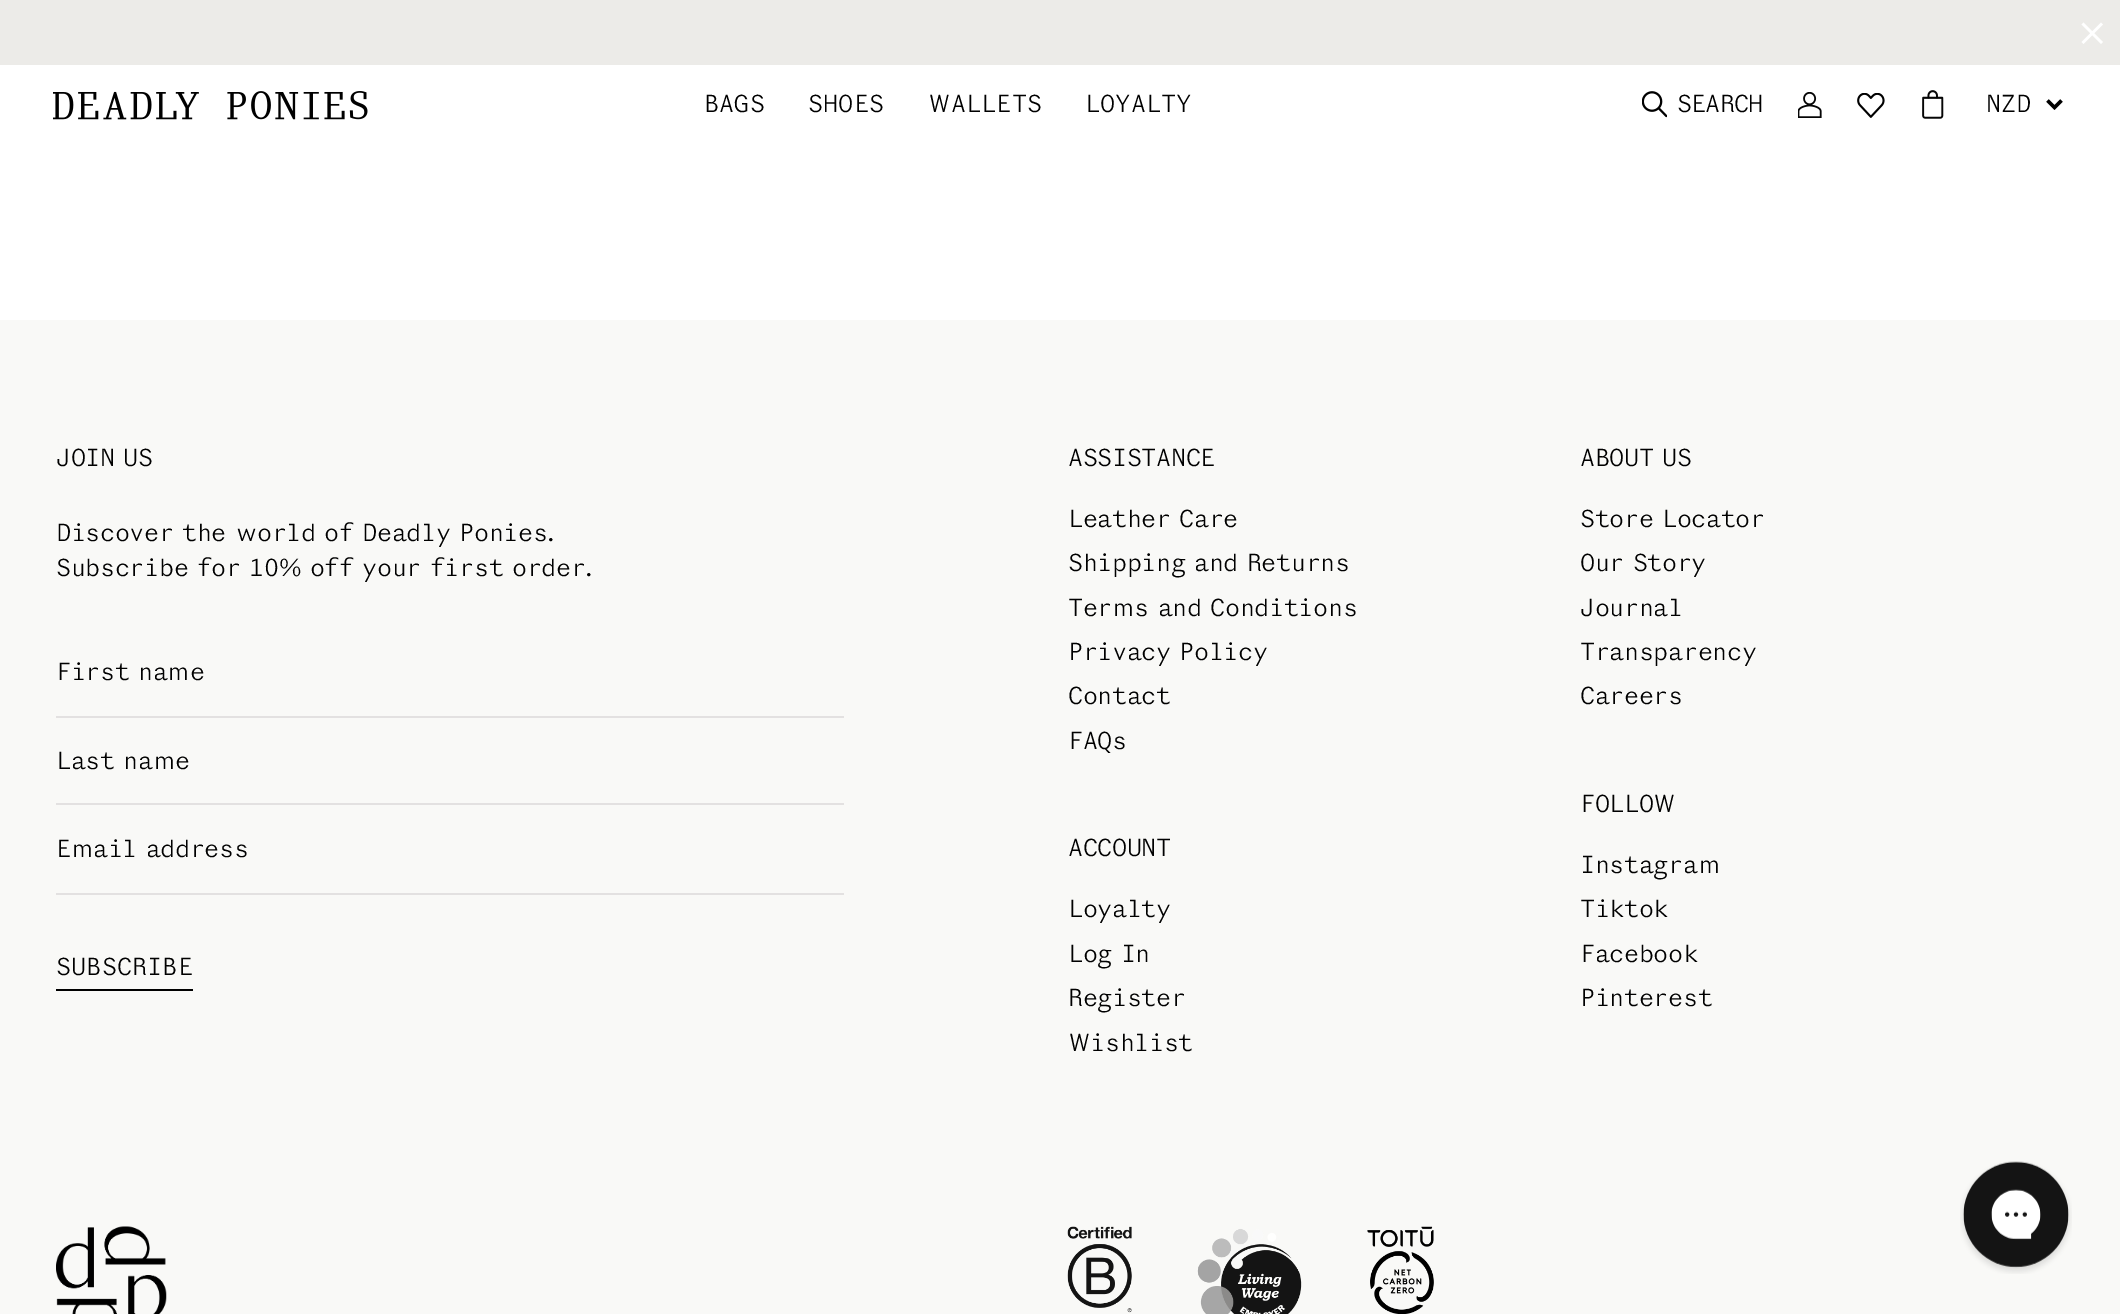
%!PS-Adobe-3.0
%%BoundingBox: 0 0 2120 1314
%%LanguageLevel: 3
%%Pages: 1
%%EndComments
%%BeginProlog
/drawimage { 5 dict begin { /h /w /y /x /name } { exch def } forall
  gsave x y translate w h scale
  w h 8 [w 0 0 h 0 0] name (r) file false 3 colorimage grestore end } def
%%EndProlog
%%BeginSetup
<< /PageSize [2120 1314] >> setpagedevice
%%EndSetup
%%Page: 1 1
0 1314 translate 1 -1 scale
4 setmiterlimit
1 setgray
0 0 2120 1314 rectfill
0.925 0.922 0.91 setrgbcolor
0 0 2120 65 rectfill
1 setgray
2.6 setlinewidth
newpath 2082.5 23.5 moveto 2102 43 lineto 2102 23.5 moveto 2082.5 43 lineto stroke
(images/1.raw) 53 91 315 29 drawimage
(images/2.raw) 1642 91 25 27 drawimage
(images/3.raw) 1798 92 24 26 drawimage
(images/4.raw) 1857 93 28 25 drawimage
(images/5.raw) 1922 90 22 29 drawimage
0 setgray
3.5 setlinewidth
newpath 2047.5 100.5 moveto 2054.5 107.5 lineto 2061.5 100.5 lineto stroke
0.976 0.976 0.969 setrgbcolor
0 320 2120 994 rectfill
0.89 0.882 0.882 setrgbcolor
56 716 788 2 rectfill
56 803 788 2 rectfill
56 893 788 2 rectfill
0 setgray
56 989 137 2 rectfill
(images/6.raw) 56 1226 111 88 drawimage
(images/7.raw) 1067 1226 367 88 drawimage
(images/8.raw) 1960 1161 112 113 drawimage
/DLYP-Regular [24.5 0 0 -24.5 0 0] selectfont
704 112 moveto (BAGS) show
808 112 moveto (SHOES) show
928 112 moveto (WALLETS) show
1085 112 moveto (LOYALTY) show
1677 112 moveto -1 0 (SEARCH) ashow
1986 112 moveto (NZD) show
56 466 moveto -0.5 0 (JOIN US) ashow
56 541 moveto -0.5 0 (Discover the world of Deadly Ponies.) ashow
56 576 moveto -0.5 0 (Subscribe for 10% off your first order.) ashow
56 680 moveto -0.5 0 (First name) ashow
56 769 moveto -0.5 0 (Last name) ashow
56 857 moveto -0.5 0 (Email address) ashow
56 975 moveto (SUBSCRIBE) show
1068 466 moveto -0.5 0 (ASSISTANCE) ashow
1068 527 moveto -0.5 0 (Leather Care) ashow
1068 571 moveto -0.5 0 (Shipping and Returns) ashow
1068 616 moveto -0.5 0 (Terms and Conditions) ashow
1068 660 moveto -0.5 0 (Privacy Policy) ashow
1068 704 moveto -0.5 0 (Contact) ashow
1068 749 moveto -0.5 0 (FAQs) ashow
1068 856 moveto -0.5 0 (ACCOUNT) ashow
1068 917 moveto -0.5 0 (Loyalty) ashow
1068 962 moveto -0.5 0 (Log In) ashow
1068 1006 moveto -0.5 0 (Register) ashow
1068 1051 moveto -0.5 0 (Wishlist) ashow
1580 466 moveto -0.5 0 (ABOUT US) ashow
1580 527 moveto -0.5 0 (Store Locator) ashow
1580 571 moveto -0.5 0 (Our Story) ashow
1580 616 moveto -0.5 0 (Journal) ashow
1580 660 moveto -0.5 0 (Transparency) ashow
1580 704 moveto -0.5 0 (Careers) ashow
1580 812 moveto -0.5 0 (FOLLOW) ashow
1580 873 moveto -0.5 0 (Instagram) ashow
1580 917 moveto -0.5 0 (Tiktok) ashow
1580 962 moveto -0.5 0 (Facebook) ashow
1580 1006 moveto -0.5 0 (Pinterest) ashow
showpage
%%EOF
